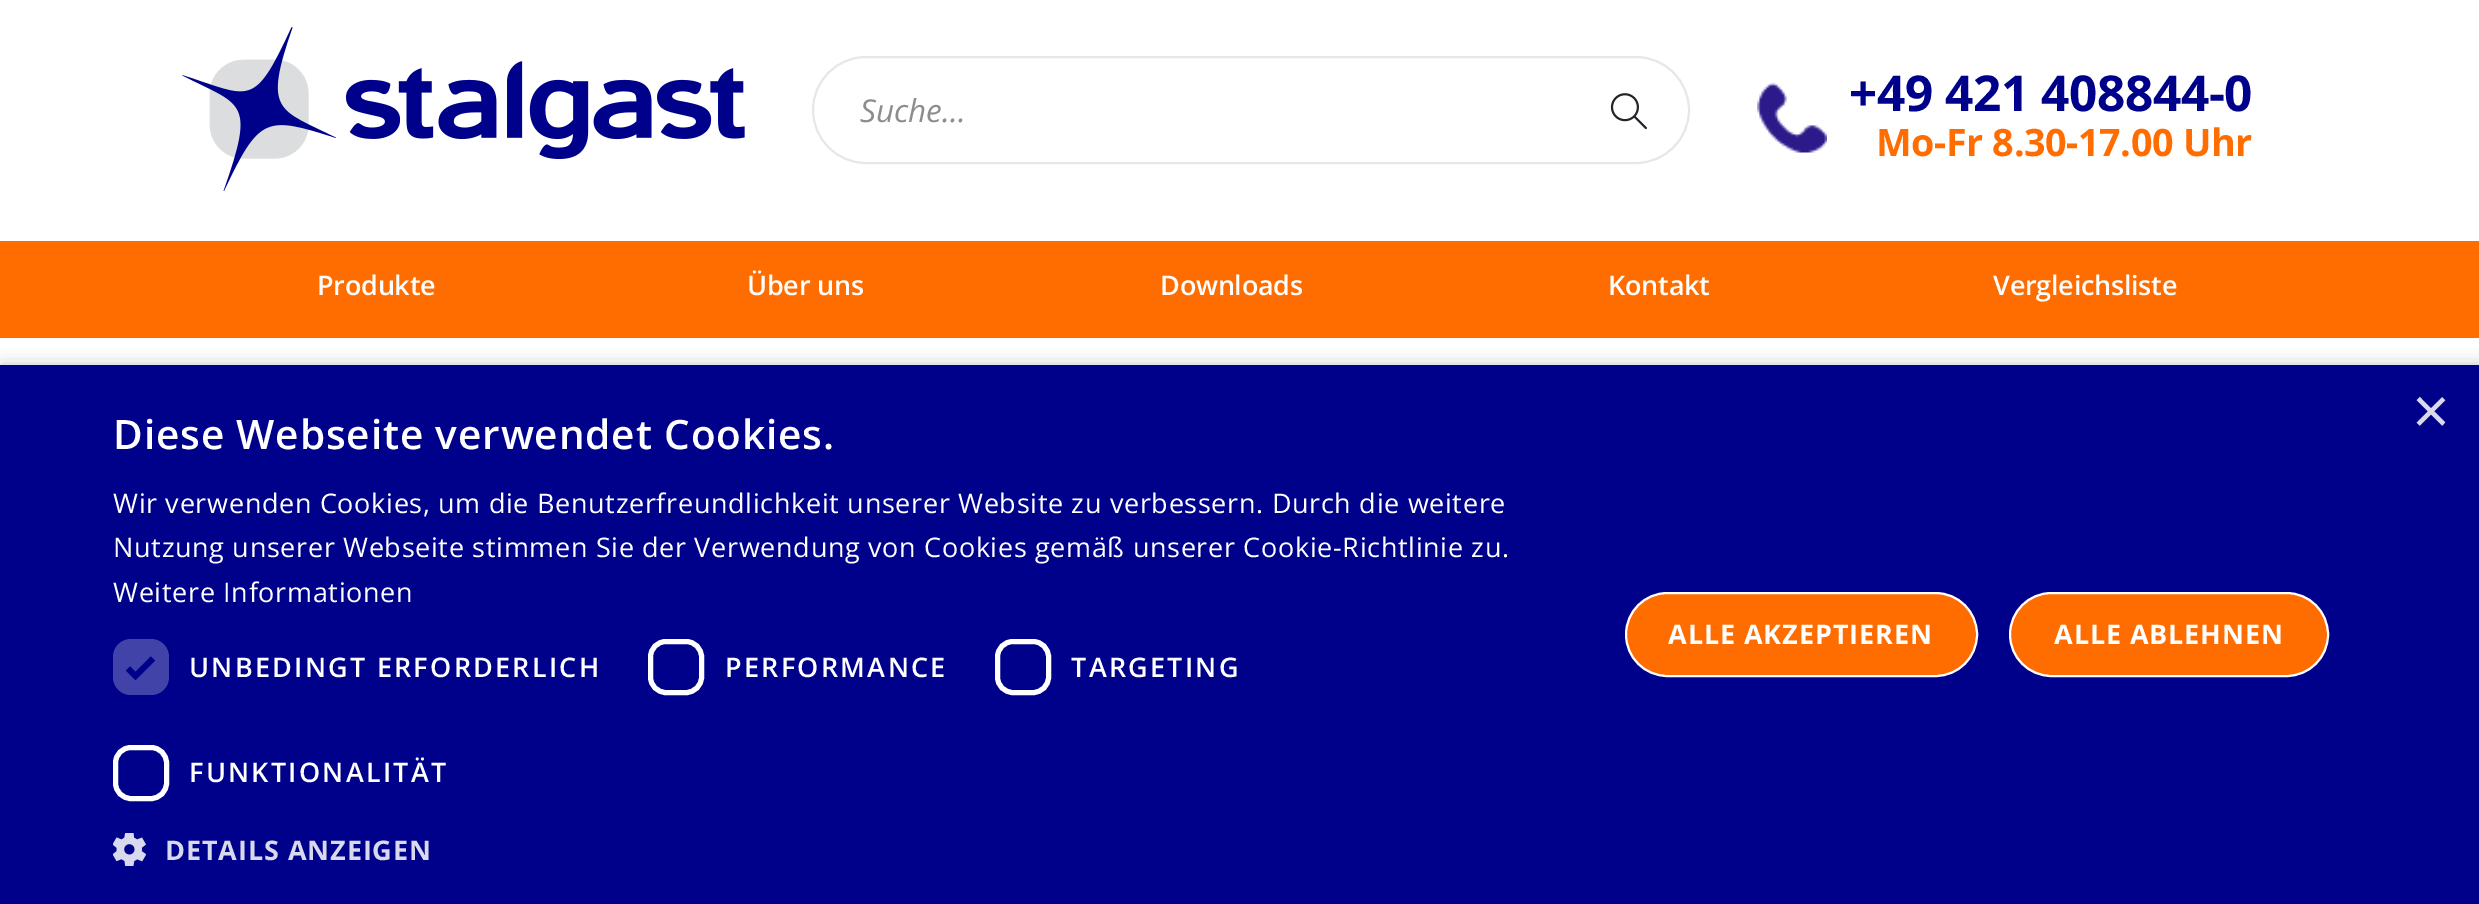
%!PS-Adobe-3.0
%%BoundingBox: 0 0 2479 904
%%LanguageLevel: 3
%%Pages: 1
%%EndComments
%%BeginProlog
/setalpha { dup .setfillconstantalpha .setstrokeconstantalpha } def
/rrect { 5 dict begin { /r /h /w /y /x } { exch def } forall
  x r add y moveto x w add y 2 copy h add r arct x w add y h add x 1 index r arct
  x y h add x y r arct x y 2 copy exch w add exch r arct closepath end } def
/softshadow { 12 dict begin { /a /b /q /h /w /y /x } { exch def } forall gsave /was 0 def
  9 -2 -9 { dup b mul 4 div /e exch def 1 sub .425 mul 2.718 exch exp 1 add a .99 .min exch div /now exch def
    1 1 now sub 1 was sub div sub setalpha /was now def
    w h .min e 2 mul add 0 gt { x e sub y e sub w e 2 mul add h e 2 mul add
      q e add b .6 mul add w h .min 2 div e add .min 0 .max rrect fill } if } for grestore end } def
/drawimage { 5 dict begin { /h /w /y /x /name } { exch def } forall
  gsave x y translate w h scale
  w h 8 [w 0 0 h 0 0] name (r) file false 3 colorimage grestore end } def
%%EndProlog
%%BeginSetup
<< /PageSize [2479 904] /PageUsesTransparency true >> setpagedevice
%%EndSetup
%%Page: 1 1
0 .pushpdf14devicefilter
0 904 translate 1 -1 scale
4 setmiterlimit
1 setgray
0 0 2479 904 rectfill
(images/1.raw) 182 27 563 164 drawimage
0.906 setgray
2 setlinewidth
813 57 876 106 53 rrect stroke
(images/2.raw) 1610 93 37 37 drawimage
(images/3.raw) 1757 82 70 71 drawimage
1 0.427 0 setrgbcolor
0 241 2479 97 rectfill
0 setgray
2 369 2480 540 0 9 0.35 softshadow
0 0.004 0.541 setrgbcolor
0 365 2479 539 rectfill
0.259 0.263 0.659 setrgbcolor
113 639 56 56 18 rrect fill
0 0.004 0.541 setrgbcolor
5.9 setlinewidth
newpath 128 668.5 moveto 135.5 676 lineto 153 658.5 lineto stroke
1 setgray
5 setlinewidth
650.5 641.5 51 51 15.5 rrect stroke
997.5 641.5 51 51 15.5 rrect stroke
115.5 747.5 51 51 15.5 rrect stroke
(images/4.raw) 113 833 33 33 drawimage
1 0.427 0 setrgbcolor
1626 593 351 83 41.5 rrect gsave fill grestore
1 setgray
2 setlinewidth
stroke
1 0.427 0 setrgbcolor
2010 593 318 83 41.5 rrect gsave fill grestore
1 setgray
stroke
/OpenSans-Italic [31.5 0 0 -31.5 0 0] selectfont
0.553 setgray
860 122 moveto (Suche…) show
/OpenSans-Bold [49.5 0 0 -49.5 0 0] selectfont
0 0.004 0.541 setrgbcolor
1849 111 moveto -0.4 0 (+49 421 408844-0) ashow
/OpenSans-Bold [37.75 0 0 -37.75 0 0] selectfont
1 0.427 0 setrgbcolor
1876 156 moveto -0.4 0 (Mo-Fr 8.30-17.00 Uhr) ashow
/OpenSans-SemiBold [27 0 0 -27 0 0] selectfont
1 setgray
317 295 moveto -0.25 0 (Produkte) ashow
747 295 moveto -0.25 0 (Über uns) ashow
1160 295 moveto -0.25 0 (Downloads) ashow
1608 295 moveto -0.25 0 (Kontakt) ashow
1993 295 moveto -0.25 0 (Vergleichsliste) ashow
/LiberationSans-Regular [65 0 0 -65 0 0] selectfont
0.851 0.851 0.929 setrgbcolor
2412 433 moveto (×) show
/OpenSans-SemiBold [40.5 0 0 -40.5 0 0] selectfont
1 setgray
113 449 moveto 0.9 0 (Diese Webseite verwendet Cookies.) ashow
/OpenSans-Regular [27 0 0 -27 0 0] selectfont
113 513 moveto 0.67 0 (Wir verwenden Cookies, um die Benutzerfreundlichkeit unserer Website zu verbessern. Durch die weitere) ashow
113 557 moveto 0.67 0 (Nutzung unserer Webseite stimmen Sie der Verwendung von Cookies gemäß unserer Cookie-Richtlinie zu.) ashow
113 602 moveto 0.67 0 (Weitere Informationen) ashow
/OpenSans-SemiBold [27 0 0 -27 0 0] selectfont
189 677 moveto 2.25 0 (UNBEDINGT ERFORDERLICH) ashow
725 677 moveto 2.25 0 (PERFORMANCE) ashow
1071 677 moveto 2.25 0 (TARGETING) ashow
189 782 moveto 2.25 0 (FUNKTIONALITÄT) ashow
/OpenSans-Bold [27 0 0 -27 0 0] selectfont
0.851 0.851 0.929 setrgbcolor
165 860 moveto 0.9 0 (DETAILS ANZEIGEN) ashow
1 setgray
1668 644 moveto 0.9 0 (ALLE AKZEPTIEREN) ashow
2054 644 moveto 0.9 0 (ALLE ABLEHNEN) ashow
.poppdf14devicefilter showpage
%%EOF
